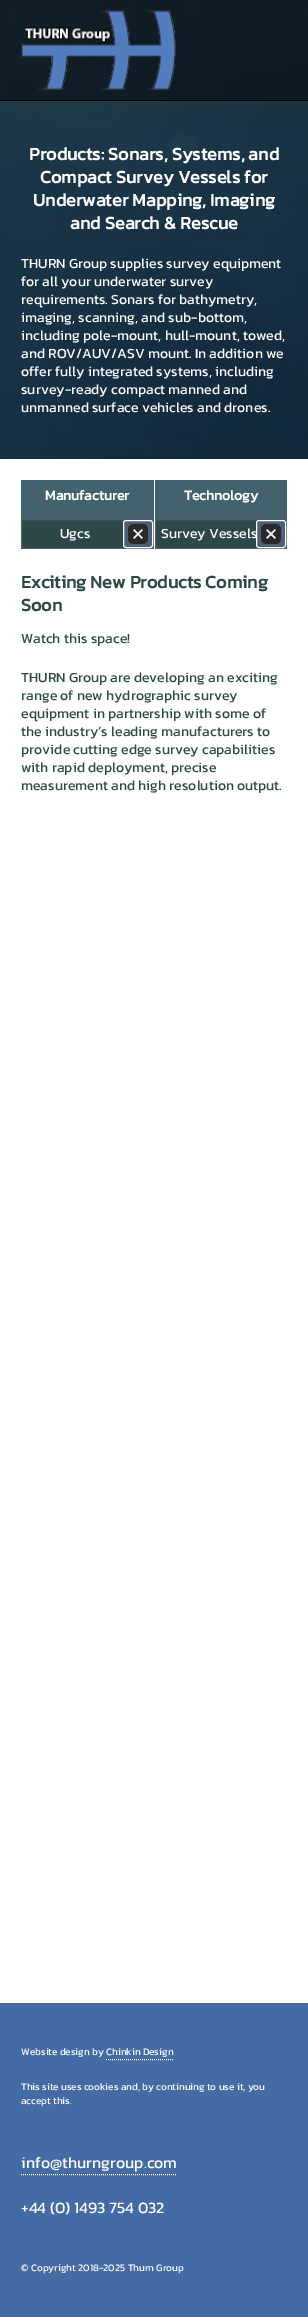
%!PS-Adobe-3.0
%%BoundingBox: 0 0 308 2317
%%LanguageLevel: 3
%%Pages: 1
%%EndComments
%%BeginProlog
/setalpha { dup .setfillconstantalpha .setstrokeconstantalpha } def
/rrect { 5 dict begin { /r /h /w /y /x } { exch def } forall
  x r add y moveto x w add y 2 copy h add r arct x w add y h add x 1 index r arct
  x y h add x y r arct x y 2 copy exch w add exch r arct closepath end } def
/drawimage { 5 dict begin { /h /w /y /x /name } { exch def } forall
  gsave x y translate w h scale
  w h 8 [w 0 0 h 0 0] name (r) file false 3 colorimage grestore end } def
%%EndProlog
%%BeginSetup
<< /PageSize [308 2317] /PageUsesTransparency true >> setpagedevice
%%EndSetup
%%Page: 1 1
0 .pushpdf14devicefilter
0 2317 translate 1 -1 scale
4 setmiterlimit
1 setgray
0 0 308 2317 rectfill
(images/2.raw) 0 0 308 459 drawimage
0.5 setalpha
0 setgray
0 0 308 100 rectfill
1 setalpha
0 100 308 1 rectfill
(images/1.raw) 21 9 155 82 drawimage
0.267 0.384 0.427 setrgbcolor
21 480 266 69 rectfill
0.18 0.282 0.286 setrgbcolor
21 519 133 30 3 rrect fill
0.2 setalpha
0.8 setgray
21.5 519.5 132 29 2.5 rrect stroke
1 setalpha
(images/3.raw) 123 520 30 28 drawimage
1 setgray
123.5 520.5 29 27 2.5 rrect stroke
154 480 1 69 rectfill
0.18 0.282 0.286 setrgbcolor
155 519 132 30 3 rrect fill
0.2 setalpha
0.8 setgray
155.5 519.5 131 29 2.5 rrect stroke
1 setalpha
0.271 0.42 0.647 setrgbcolor
0 2003 308 314 rectfill
1 setgray
[1 1] 0 setdash
newpath 106 2059.5 moveto 173 2059.5 lineto stroke
newpath 21 2174.5 moveto 177 2174.5 lineto stroke
/Kanit-Bold [18 0 0 -18 0 0] selectfont
29 160 moveto (Products: Sonars, Systems, and) show
40 183 moveto (Compact Survey Vessels for) show
33 206 moveto (Underwater Mapping, Imaging) show
70 229 moveto (and Search & Rescue) show
/Kanit-Regular [14 0 0 -14 0 0] selectfont
21 268 moveto (THURN Group supplies survey equipment) show
21 286 moveto (for all your underwater survey) show
21 304 moveto (requirements. Sonars for bathymetry,) show
21 322 moveto (imaging, scanning, and sub-bottom,) show
21 340 moveto (including pole-mount, hull-mount, towed,) show
21 358 moveto (and ROV/AUV/ASV mount. In addition we) show
21 376 moveto (offer fully integrated systems, including) show
21 394 moveto (survey-ready compact manned and) show
21 412 moveto (unmanned surface vehicles and drones.) show
/Kanit-Bold [14 0 0 -14 0 0] selectfont
45 500 moveto (Manufacturer) show
/Kanit-Regular [14 0 0 -14 0 0] selectfont
60 538 moveto (Ugcs) show
/Kanit-Bold [14 0 0 -14 0 0] selectfont
184 500 moveto (Technology) show
/Kanit-Regular [14 0 0 -14 0 0] selectfont
161 538 moveto (Survey Vessels) show
(images/3.raw) 256 520 30 28 drawimage
[] 0 setdash
256.5 520.5 29 27 2.5 rrect stroke
/Kanit-Bold [18 0 0 -18 0 0] selectfont
0.18 0.282 0.286 setrgbcolor
21 588 moveto (Exciting New Products Coming) show
21 611 moveto (Soon) show
/Kanit-Regular [14 0 0 -14 0 0] selectfont
21 643 moveto (Watch this space!) show
21 682 moveto (THURN Group are developing an exciting) show
21 700 moveto (range of new hydrographic survey) show
21 718 moveto (equipment in partnership with some of) show
21 736 moveto (the industry’s leading manufacturers to) show
21 754 moveto (provide cutting edge survey capabilities) show
21 772 moveto (with rapid deployment, precise) show
21 790 moveto (measurement and high resolution output.) show
/Kanit-Regular [10 0 0 -10 0 0] selectfont
1 setgray
21 2055 moveto (Website design by Chinkin Design) show
21 2090 moveto (This site uses cookies and, by continuing to use it, you) show
21 2104 moveto (accept this.) show
/Kanit-Regular [16 0 0 -16 0 0] selectfont
21 2168 moveto (info@thurngroup.com) show
21 2213 moveto (+44 \(0\) 1493 754 032) show
/Kanit-Regular [10 0 0 -10 0 0] selectfont
21 2271 moveto (© Copyright 2018-2025 Thurn Group) show
.poppdf14devicefilter showpage
%%EOF
